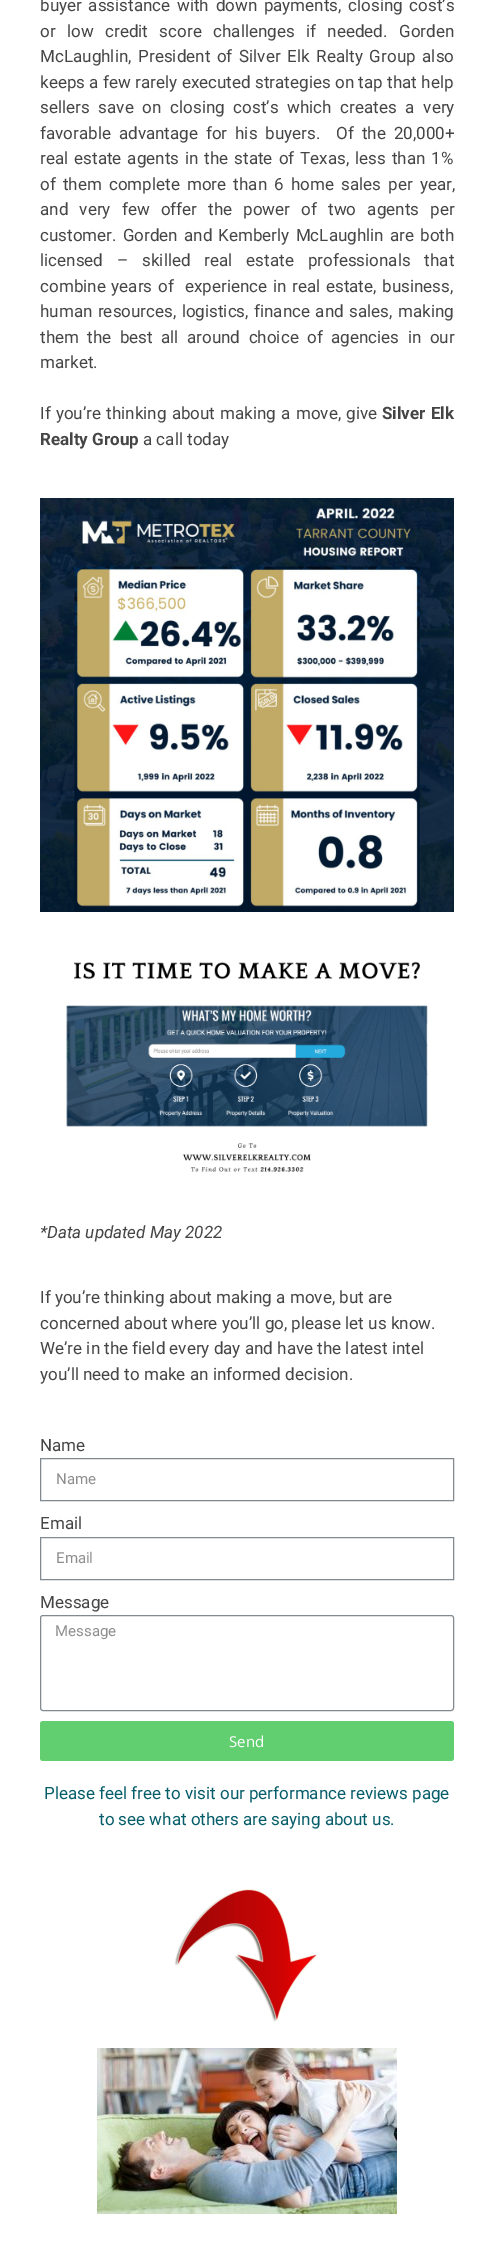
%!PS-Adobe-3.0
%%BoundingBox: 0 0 494 2248
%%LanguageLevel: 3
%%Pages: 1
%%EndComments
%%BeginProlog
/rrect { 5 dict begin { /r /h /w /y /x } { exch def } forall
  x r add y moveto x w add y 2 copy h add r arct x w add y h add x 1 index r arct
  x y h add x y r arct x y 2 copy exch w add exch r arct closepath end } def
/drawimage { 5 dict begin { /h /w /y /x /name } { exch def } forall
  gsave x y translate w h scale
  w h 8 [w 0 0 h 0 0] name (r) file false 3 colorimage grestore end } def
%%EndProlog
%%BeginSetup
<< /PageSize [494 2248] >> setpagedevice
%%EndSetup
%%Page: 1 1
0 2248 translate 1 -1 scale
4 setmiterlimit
1 setgray
0 0 494 2248 rectfill
(images/1.raw) 40 498 414 414 drawimage
(images/2.raw) 66 961 362 211 drawimage
0.506 0.541 0.569 setrgbcolor
40.5 1458.5 413 42 rectstroke
40.5 1537.5 413 42 rectstroke
40.5 1615.5 413 95 2.5 rrect stroke
0.38 0.808 0.439 setrgbcolor
40 1721 414 40 3 rrect fill
(images/3.raw) 174 1888 144 135 drawimage
(images/4.raw) 97 2048 300 166 drawimage
/Roboto-Regular [17 0 0 -17 0 0] selectfont
0.271 setgray
40 11 moveto 2.5 0 32 (buyer assistance with down payments, closing cost’s) widthshow
40 37 moveto 7.25 0 32 (or low credit score challenges if needed. Gorden) widthshow
40 62 moveto 2.5 0 32 (McLaughlin, President of Silver Elk Realty Group also) widthshow
40 88 moveto 0.25 0 32 (keeps a few rarely executed strategies on tap that help) widthshow
40 113 moveto 4.5 0 32 (sellers save on closing cost’s which creates a very) widthshow
40 139 moveto 3.75 0 32 (favorable advantage for his buyers.  Of the 20,000+) widthshow
40 164 moveto 1.8 0 32 (real estate agents in the state of Texas, less than 1%) widthshow
40 190 moveto 3 0 32 (of them complete more than 6 home sales per year,) widthshow
40 215 moveto 7 0 32 (and very few offer the power of two agents per) widthshow
40 241 moveto 2 0 32 (customer. Gorden and Kemberly McLaughlin are both) widthshow
40 266 moveto 9.75 0 32 (licensed – skilled real estate professionals that) widthshow
40 292 moveto 1.5 0 32 (combine years of  experience in real estate, business,) widthshow
40 317 moveto 1.25 0 32 (human resources, logistics, finance and sales, making) widthshow
40 343 moveto 4.25 0 32 (them the best all around choice of agencies in our) widthshow
40 368 moveto (market.) show
40 419 moveto 1 0 32 (If you’re thinking about making a move, give) widthshow
/Roboto-Bold [17 0 0 -17 0 0] selectfont
382 419 moveto 1 0 32 (Silver Elk) widthshow
40 445 moveto (Realty Group) show
/Roboto-Regular [17 0 0 -17 0 0] selectfont
143 445 moveto (a call today) show
/Roboto-Italic [17 0 0 -17 0 0] selectfont
40 1238 moveto (*Data updated May 2022) show
/Roboto-Regular [17 0 0 -17 0 0] selectfont
40 1303 moveto (If you’re thinking about making a move, but are) show
40 1329 moveto (concerned about where you’ll go, please let us know.) show
40 1354 moveto (We’re in the field every day and have the latest intel) show
40 1380 moveto (you’ll need to make an informed decision.) show
40 1451 moveto (Name) show
/Roboto-Regular [15 0 0 -15 0 0] selectfont
0.561 setgray
56 1484 moveto (Name) show
/Roboto-Regular [17 0 0 -17 0 0] selectfont
0.271 setgray
40 1529 moveto (Email) show
/Roboto-Regular [15 0 0 -15 0 0] selectfont
0.561 setgray
56 1563 moveto (Email) show
/Roboto-Regular [17 0 0 -17 0 0] selectfont
0.271 setgray
40 1608 moveto (Message) show
/Roboto-Regular [15 0 0 -15 0 0] selectfont
0.561 setgray
55 1636 moveto (Message) show
/OpenSans-Regular [15 0 0 -15 0 0] selectfont
1 setgray
229 1747 moveto (Send) show
/Roboto-Regular [17 0 0 -17 0 0] selectfont
0.024 0.365 0.416 setrgbcolor
44 1799 moveto (Please feel free to visit our performance reviews page) show
99 1825 moveto (to see what others are saying about us.) show
showpage
%%EOF
